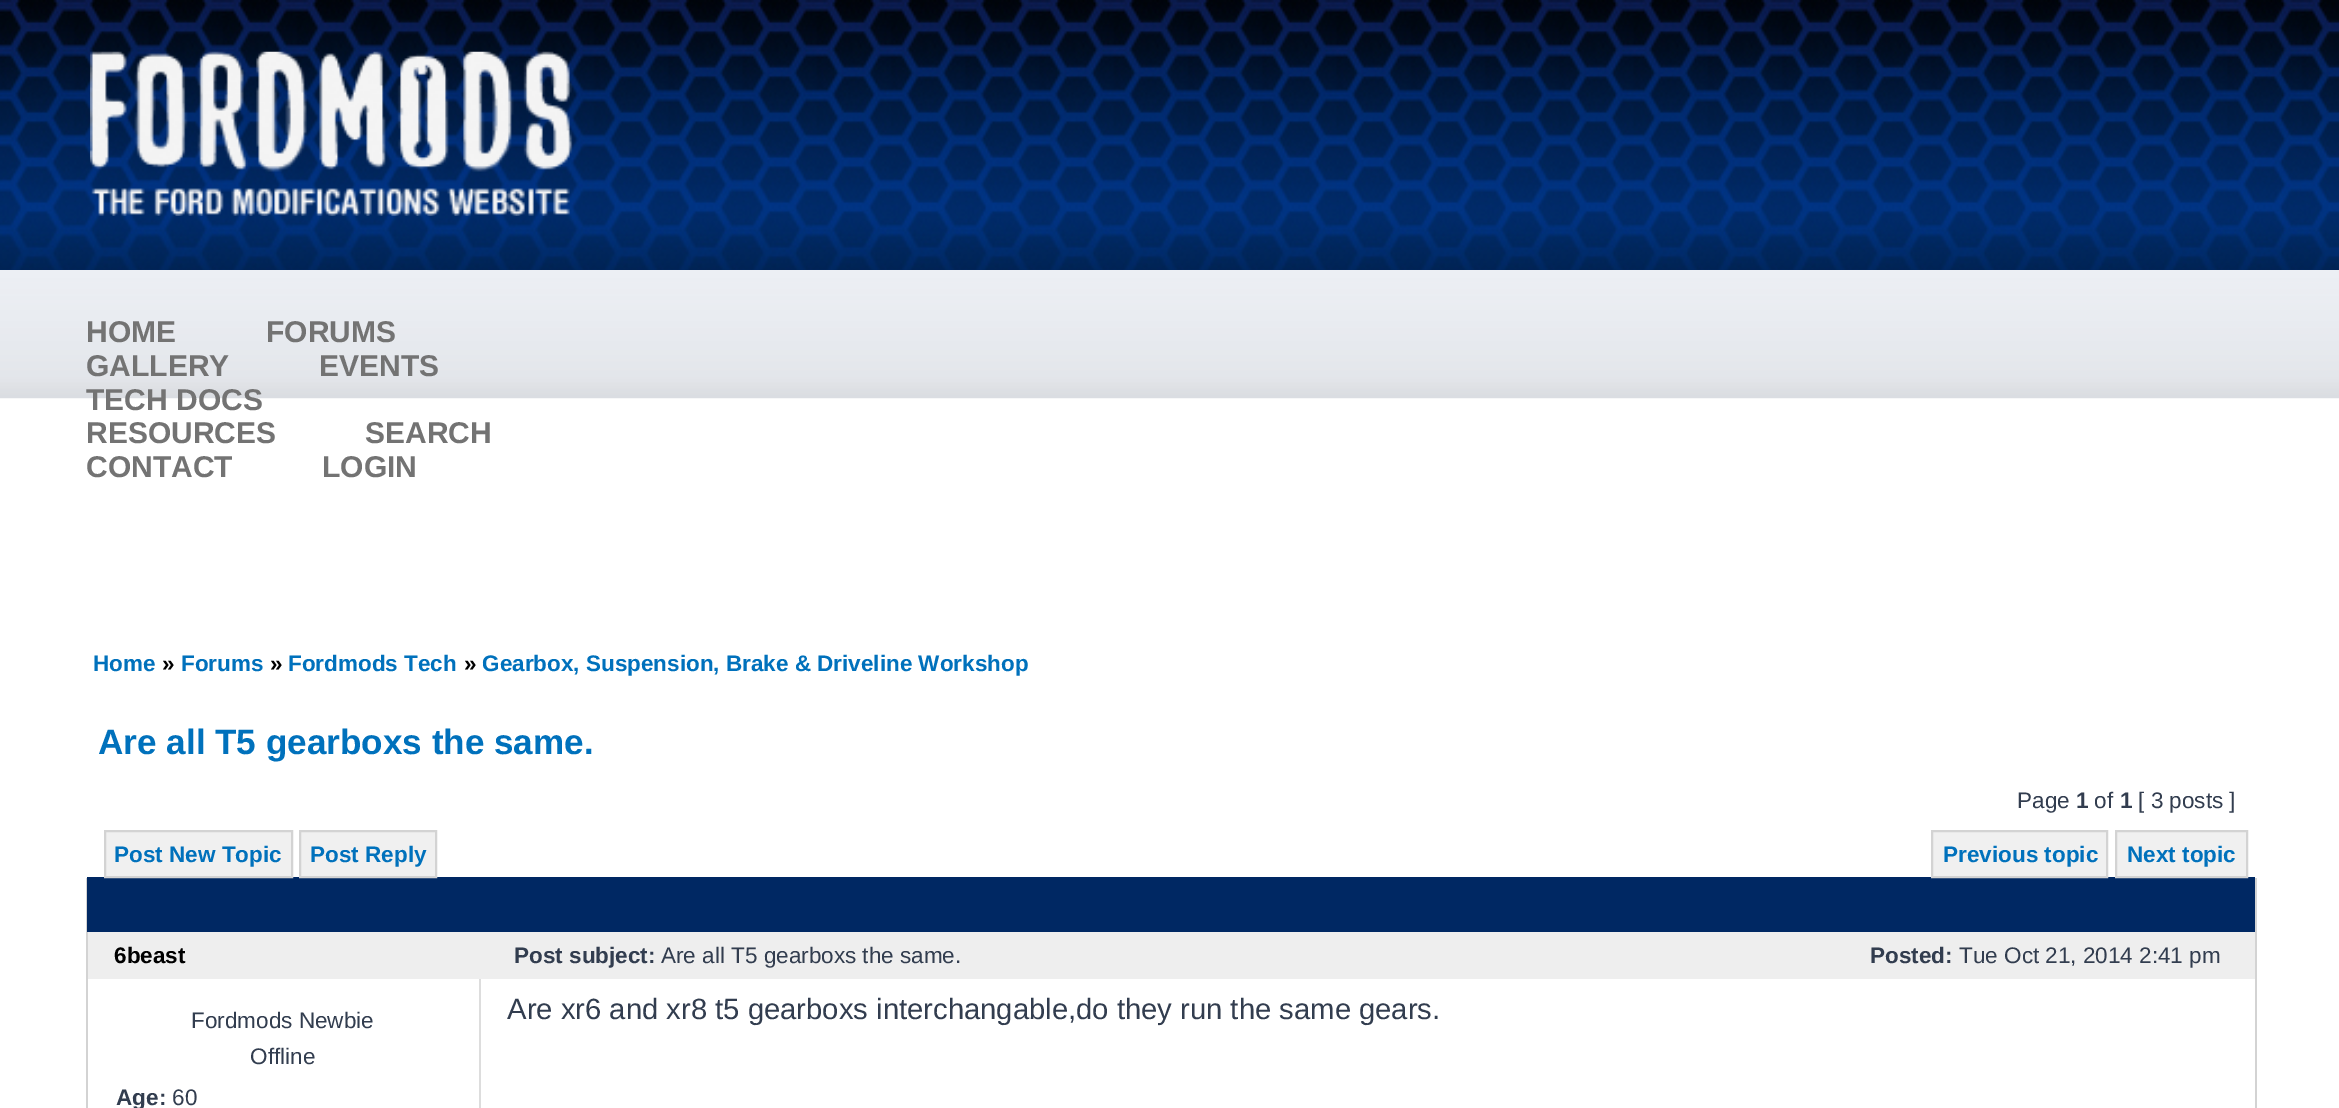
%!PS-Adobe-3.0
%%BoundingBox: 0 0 2339 1108
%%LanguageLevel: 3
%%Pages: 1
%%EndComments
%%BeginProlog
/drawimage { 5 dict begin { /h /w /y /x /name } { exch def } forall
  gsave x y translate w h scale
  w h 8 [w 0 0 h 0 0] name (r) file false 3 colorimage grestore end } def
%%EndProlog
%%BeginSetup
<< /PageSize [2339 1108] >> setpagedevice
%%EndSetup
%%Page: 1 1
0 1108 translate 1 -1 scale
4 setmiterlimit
1 setgray
0 0 2339 1108 rectfill
(images/1.raw) 0 0 2339 270 drawimage
(images/2.raw) 90 51 483 165 drawimage
(images/3.raw) 0 270 2339 129 drawimage
0.827 setgray
86 878 2 230 rectfill
0 0.157 0.388 setrgbcolor
87 877 2168 55 rectfill
0.941 setgray
newpath 105 831 moveto 292 831 lineto 292 877 lineto 105 877 lineto closepath gsave fill grestore
0.827 setgray
2 setlinewidth
stroke
0.941 setgray
newpath 300 831 moveto 436 831 lineto 436 877 lineto 300 877 lineto closepath gsave fill grestore
0.827 setgray
stroke
0.941 setgray
newpath 1932 831 moveto 2107 831 lineto 2107 877 lineto 1932 877 lineto closepath gsave fill grestore
0.827 setgray
stroke
0.941 setgray
newpath 2116 831 moveto 2247 831 lineto 2247 877 lineto 2116 877 lineto closepath gsave fill grestore
0.827 setgray
stroke
2255 878 2 230 rectfill
0.933 setgray
88 932 2167 47 rectfill
0.867 setgray
479 979 2 129 rectfill
/LiberationSans-Bold [30 0 0 -30 0 0] selectfont
0.451 setgray
86 342 moveto (HOME) show
266 342 moveto (FORUMS) show
86 376 moveto (GALLERY) show
319 376 moveto (EVENTS) show
86 410 moveto (TECH DOCS) show
86 443 moveto (RESOURCES) show
365 443 moveto (SEARCH) show
86 477 moveto (CONTACT) show
322 477 moveto (LOGIN) show
/LiberationSans-Bold [22.5 0 0 -22.5 0 0] selectfont
0 0.443 0.737 setrgbcolor
93 671 moveto (Home) show
0 setgray
162 671 moveto (») show
0 0.443 0.737 setrgbcolor
181 671 moveto (Forums) show
0 setgray
270 671 moveto (») show
0 0.443 0.737 setrgbcolor
288 671 moveto (Fordmods Tech) show
0 setgray
464 671 moveto (») show
0 0.443 0.737 setrgbcolor
482 671 moveto (Gearbox, Suspension, Brake & Driveline Workshop) show
/LiberationSans-Bold [35.1 0 0 -35.1 0 0] selectfont
98 754 moveto (Are all T5 gearboxs the same.) show
/LiberationSans-Regular [22.5 0 0 -22.5 0 0] selectfont
0.196 0.239 0.31 setrgbcolor
2017 808 moveto (Page) show
/LiberationSans-Bold [22.5 0 0 -22.5 0 0] selectfont
2076 808 moveto (1) show
/LiberationSans-Regular [22.5 0 0 -22.5 0 0] selectfont
2094 808 moveto (of) show
/LiberationSans-Bold [22.5 0 0 -22.5 0 0] selectfont
2120 808 moveto (1) show
/LiberationSans-Regular [22.5 0 0 -22.5 0 0] selectfont
2138 808 moveto ([ 3 posts ]) show
/LiberationSans-Bold [22.5 0 0 -22.5 0 0] selectfont
0 0.443 0.737 setrgbcolor
114 862 moveto (Post New Topic) show
310 862 moveto (Post Reply) show
1943 862 moveto (Previous topic) show
2127 862 moveto (Next topic) show
0 setgray
114 963 moveto (6beast) show
0.196 0.239 0.31 setrgbcolor
514 963 moveto (Post subject:) show
/LiberationSans-Regular [22.5 0 0 -22.5 0 0] selectfont
661 963 moveto (Are all T5 gearboxs the same.) show
/LiberationSans-Bold [22.5 0 0 -22.5 0 0] selectfont
1870 963 moveto (Posted:) show
/LiberationSans-Regular [22.5 0 0 -22.5 0 0] selectfont
1959 963 moveto (Tue Oct 21, 2014 2:41 pm) show
191 1028 moveto (Fordmods Newbie) show
250 1064 moveto (Offline) show
/LiberationSans-Bold [22.5 0 0 -22.5 0 0] selectfont
116 1105 moveto (Age:) show
/LiberationSans-Regular [22.5 0 0 -22.5 0 0] selectfont
172 1105 moveto (60) show
/LiberationSans-Regular [29.25 0 0 -29.25 0 0] selectfont
507 1019 moveto (Are xr6 and xr8 t5 gearboxs interchangable,do they run the same gears.) show
showpage
%%EOF
